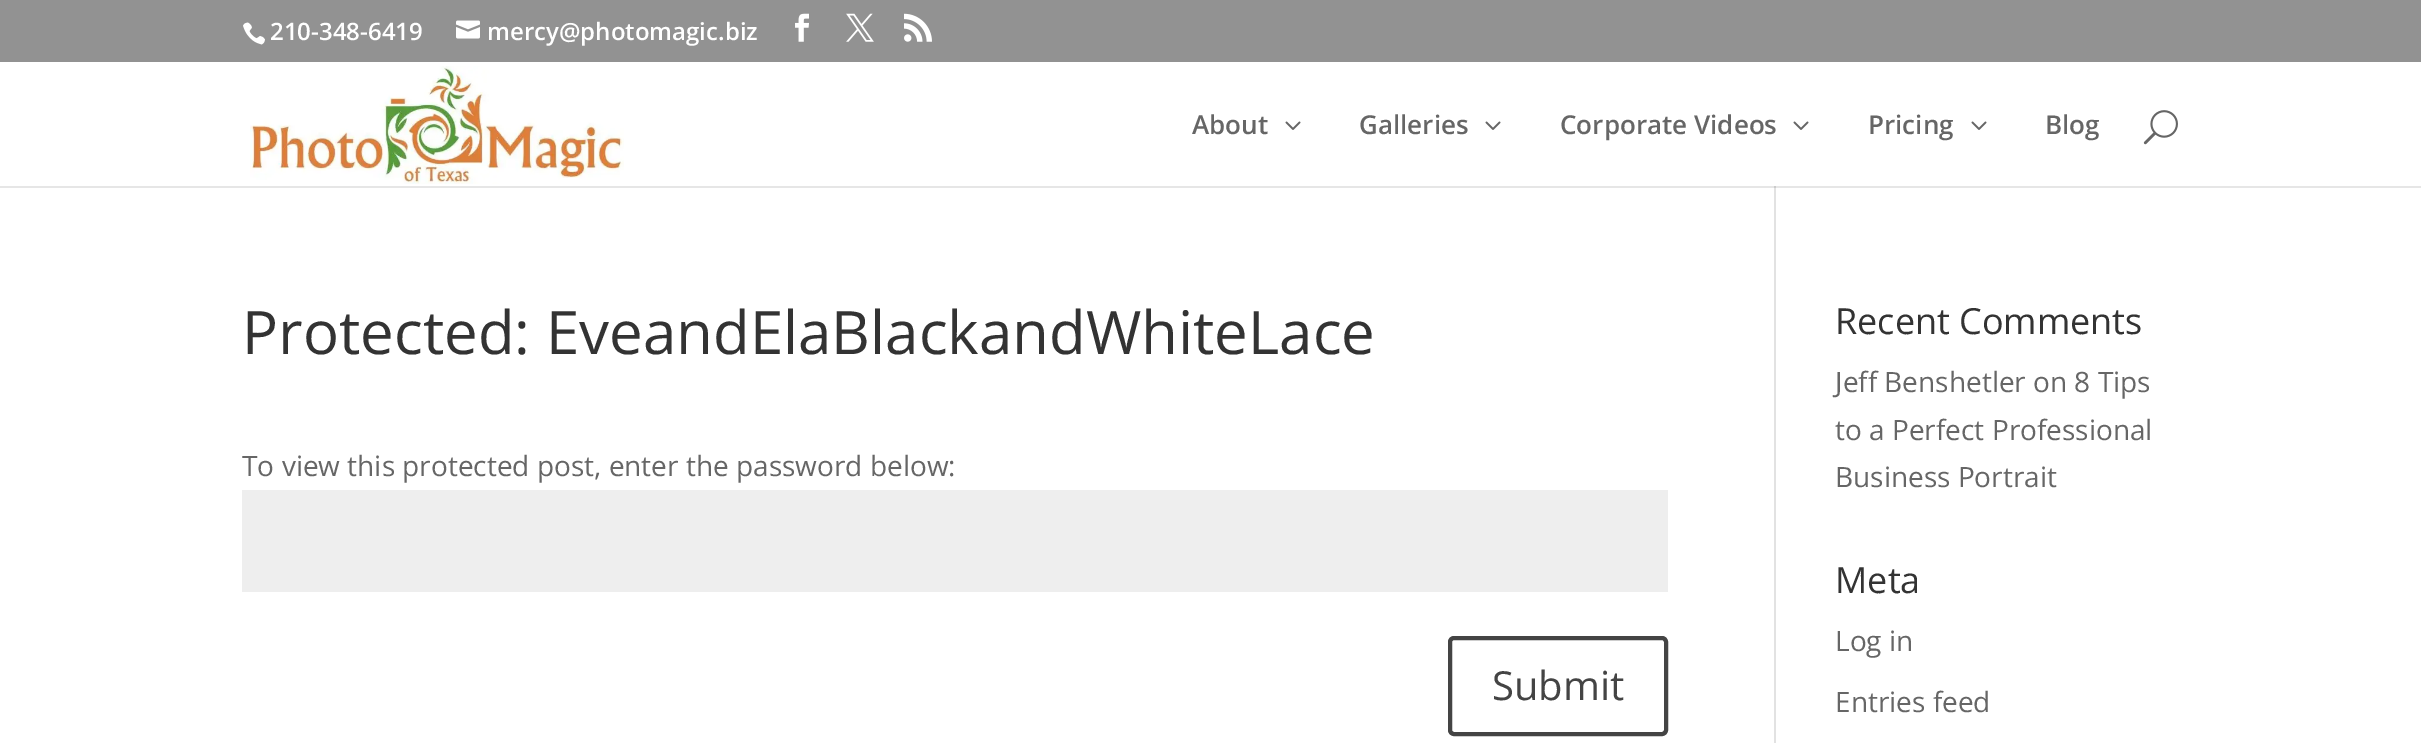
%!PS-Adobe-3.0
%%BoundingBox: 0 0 2421 743
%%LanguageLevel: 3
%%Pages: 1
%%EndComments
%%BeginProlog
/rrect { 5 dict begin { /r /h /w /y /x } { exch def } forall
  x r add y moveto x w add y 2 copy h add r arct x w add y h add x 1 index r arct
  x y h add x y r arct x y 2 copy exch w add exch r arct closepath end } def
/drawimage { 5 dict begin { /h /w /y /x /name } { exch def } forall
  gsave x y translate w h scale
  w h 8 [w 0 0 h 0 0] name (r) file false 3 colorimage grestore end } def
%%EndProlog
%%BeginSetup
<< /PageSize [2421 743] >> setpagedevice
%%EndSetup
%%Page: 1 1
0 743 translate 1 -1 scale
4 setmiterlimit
1 setgray
0 0 2421 743 rectfill
0.902 setgray
0 186 2421 2 rectfill
0.573 setgray
0 0 2421 62 rectfill
(images/1.raw) 243 22 22 23 drawimage
(images/2.raw) 456 20 24 19 drawimage
(images/3.raw) 795 13 14 29 drawimage
(images/4.raw) 846 13 28 29 drawimage
(images/5.raw) 904 13 28 29 drawimage
(images/6.raw) 250 66 374 118 drawimage
(images/7.raw) 1285 121 16 9 drawimage
(images/7.raw) 1485 121 16 9 drawimage
(images/7.raw) 1793 121 16 9 drawimage
(images/7.raw) 1971 121 16 9 drawimage
(images/8.raw) 2143 110 35 35 drawimage
0.886 setgray
1774 186 2 557 rectfill
0.796 setgray
1774 186 2 2 rectfill
0.933 setgray
242 490 1426 102 rectfill
0.267 setgray
4 setlinewidth
1450 638 216 96 4 rrect stroke
/OpenSans-SemiBold [24 0 0 -24 0 0] selectfont
1 setgray
270 40 moveto (210-348-6419) show
487 40 moveto (mercy@photomagic.biz) show
/OpenSans-SemiBold [26 0 0 -26 0 0] selectfont
0.4 setgray
1192 134 moveto (About) show
1359 134 moveto (Galleries) show
1560 134 moveto (Corporate Videos) show
1868 134 moveto (Pricing) show
2045 134 moveto (Blog) show
/OpenSans-Regular [60 0 0 -60 0 0] selectfont
0.2 setgray
242 354 moveto (Protected: EveandElaBlackandWhiteLace) show
/OpenSans-Regular [28 0 0 -28 0 0] selectfont
0.4 setgray
242 476 moveto (To view this protected post, enter the password below:) show
/OpenSans-Regular [40 0 0 -40 0 0] selectfont
0.267 setgray
1492 700 moveto (Submit) show
/OpenSans-Regular [36 0 0 -36 0 0] selectfont
0.2 setgray
1835 334 moveto (Recent Comments) show
/OpenSans-Regular [28 0 0 -28 0 0] selectfont
0.4 setgray
1835 392 moveto (Jeff Benshetler on 8 Tips) show
1835 440 moveto (to a Perfect Professional) show
1835 487 moveto (Business Portrait) show
/OpenSans-Regular [36 0 0 -36 0 0] selectfont
0.2 setgray
1835 593 moveto (Meta) show
/OpenSans-Regular [28 0 0 -28 0 0] selectfont
0.4 setgray
1835 651 moveto (Log in) show
1835 712 moveto (Entries feed) show
showpage
%%EOF
